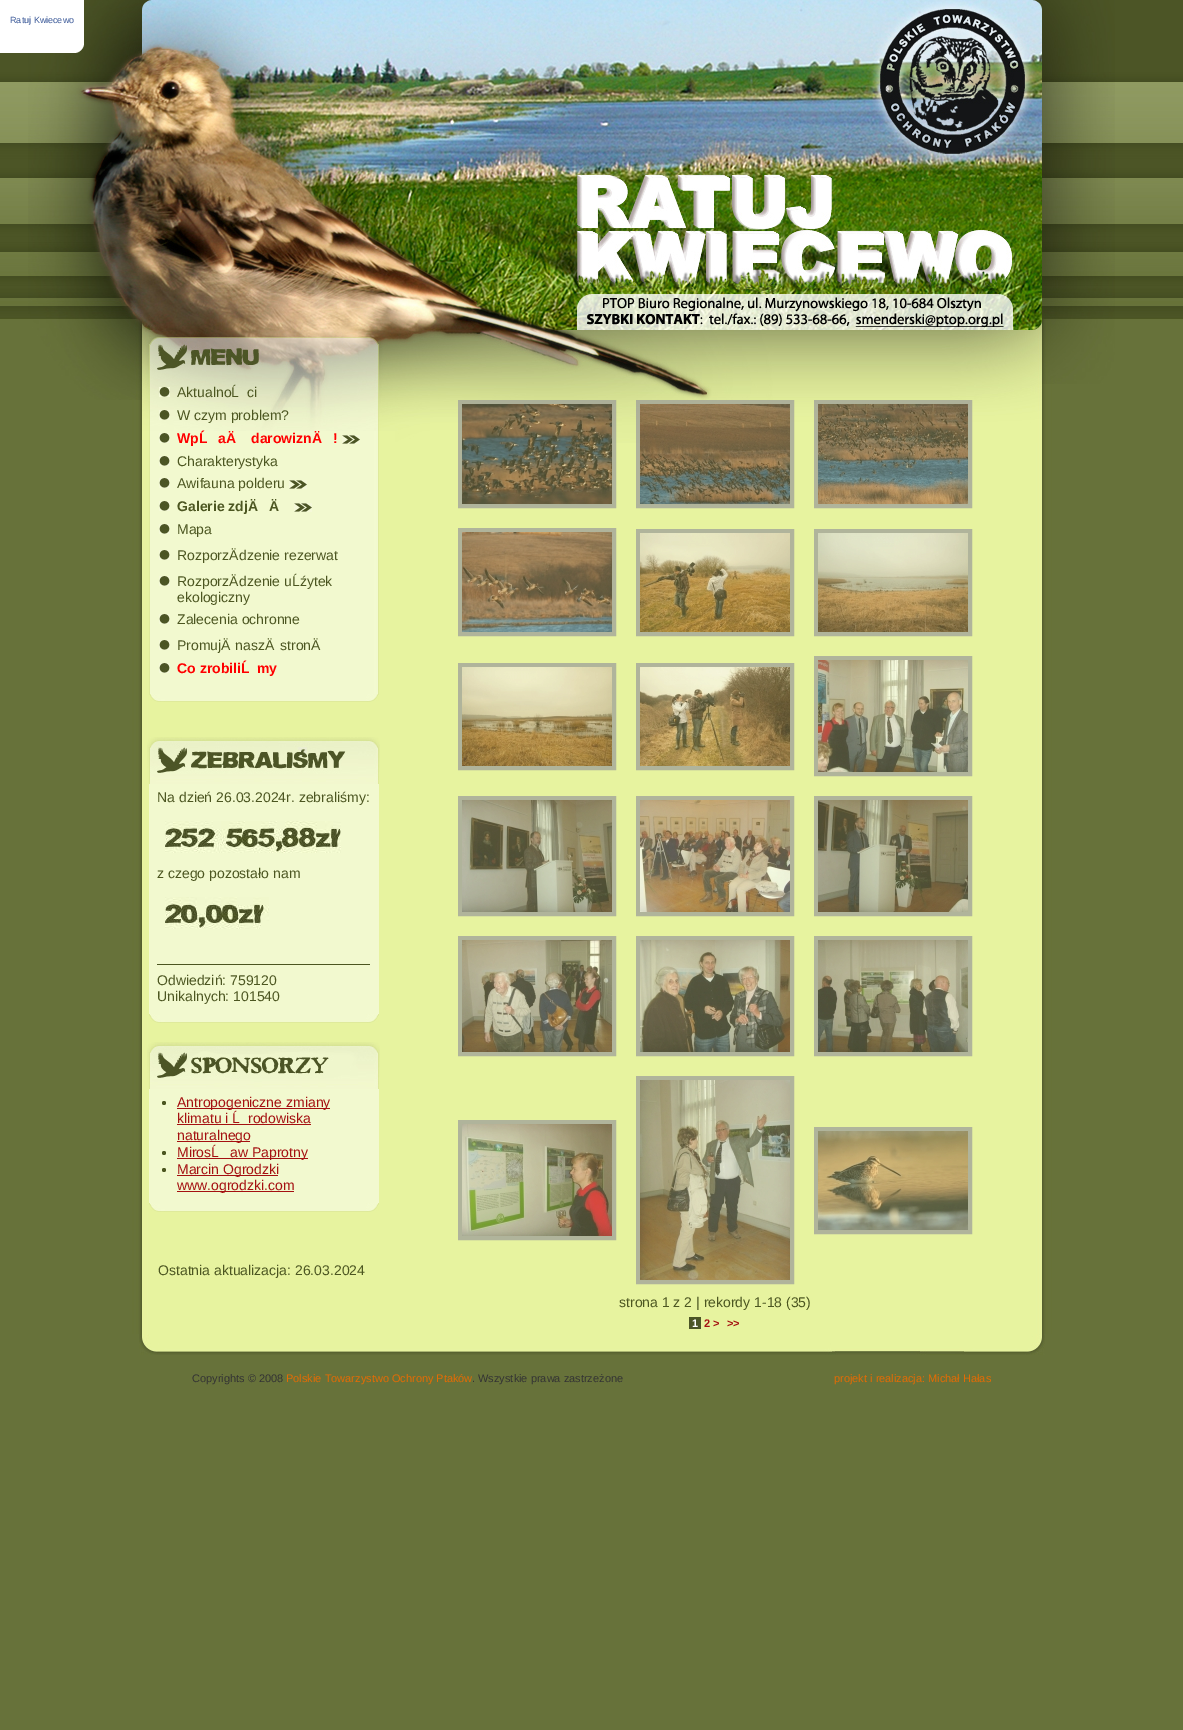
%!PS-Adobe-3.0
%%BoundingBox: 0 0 1183 1730
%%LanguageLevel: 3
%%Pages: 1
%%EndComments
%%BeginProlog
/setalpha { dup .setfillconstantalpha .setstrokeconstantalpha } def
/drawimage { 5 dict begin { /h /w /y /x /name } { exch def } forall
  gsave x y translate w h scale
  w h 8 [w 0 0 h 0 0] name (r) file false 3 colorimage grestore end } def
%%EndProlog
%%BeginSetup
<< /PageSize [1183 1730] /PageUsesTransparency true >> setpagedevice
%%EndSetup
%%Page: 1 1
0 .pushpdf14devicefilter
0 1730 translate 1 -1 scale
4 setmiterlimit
0.404 0.447 0.227 setrgbcolor
0 0 1183 1730 rectfill
(images/1.raw) 0 0 1183 319 drawimage
(images/2.raw) 127 384 930 950 drawimage
(images/3.raw) 28 0 114 400 drawimage
1 setgray
newpath 0 0 moveto 84 0 lineto 84 43 lineto 84 48.5 79.5 53 74 53 curveto 0 53 lineto closepath fill
(images/4.raw) 1042 0 73 384 drawimage
(images/5.raw) 142 0 900 172 drawimage
(images/6.raw) 142 172 900 158 drawimage
(images/7.raw) 395 330 647 113 drawimage
(images/8.raw) 142 431 253 271 drawimage
(images/9.raw) 142 330 253 49 drawimage
(images/10.raw) 142 379 253 52 drawimage
(images/11.raw) 159 387 11 10 drawimage
(images/11.raw) 159 410 11 10 drawimage
(images/11.raw) 159 433 11 10 drawimage
(images/12.raw) 342 435 18 9 drawimage
(images/11.raw) 159 456 11 10 drawimage
(images/11.raw) 159 478 11 10 drawimage
(images/12.raw) 289 480 18 9 drawimage
(images/11.raw) 159 501 11 10 drawimage
(images/12.raw) 294 503 18 9 drawimage
(images/11.raw) 159 524 11 10 drawimage
(images/11.raw) 159 550 11 10 drawimage
(images/11.raw) 159 576 11 10 drawimage
(images/11.raw) 159 614 11 10 drawimage
(images/11.raw) 159 640 11 10 drawimage
(images/11.raw) 159 663 11 10 drawimage
(images/13.raw) 149 694 230 8 drawimage
(images/14.raw) 147 737 233 47 drawimage
0.949 0.976 0.812 setrgbcolor
149 784 230 230 rectfill
(images/15.raw) 165 821 176 32 drawimage
(images/16.raw) 165 897 104 32 drawimage
0.298 0.337 0.129 setrgbcolor
157 964 213 1 rectfill
(images/17.raw) 149 1014 230 9 drawimage
(images/18.raw) 147 1042 233 47 drawimage
0.949 0.976 0.812 setrgbcolor
149 1089 230 114 rectfill
0.298 0.337 0.129 setrgbcolor
newpath 164 1103 2 0 360 arc closepath fill
0.643 0.063 0.067 setrgbcolor
177 1108 153 1 rectfill
177 1124 134 1 rectfill
177 1141 73 1 rectfill
0.298 0.337 0.129 setrgbcolor
newpath 164 1153 2 0 360 arc closepath fill
0.643 0.063 0.067 setrgbcolor
177 1158 131 1 rectfill
0.298 0.337 0.129 setrgbcolor
newpath 164 1170 2 0 360 arc closepath fill
0.643 0.063 0.067 setrgbcolor
177 1175 101 1 rectfill
177 1191 117 1 rectfill
(images/17.raw) 149 1203 230 9 drawimage
0.7 setalpha
0.6 setgray
4 setlinewidth
460 402 154 104 rectstroke
1 setalpha
(images/19.raw) 462 404 150 100 drawimage
0.7 setalpha
638 402 154 104 rectstroke
1 setalpha
(images/20.raw) 640 404 150 100 drawimage
0.7 setalpha
816 402 154 104 rectstroke
1 setalpha
(images/21.raw) 818 404 150 100 drawimage
0.69 0.706 0.608 setrgbcolor
460 530 154 104 rectstroke
(images/22.raw) 462 532 150 100 drawimage
638 531 154 103 rectstroke
(images/23.raw) 640 533 150 99 drawimage
816 531 154 103 rectstroke
(images/24.raw) 818 533 150 99 drawimage
460 665 154 103 rectstroke
(images/25.raw) 462 667 150 99 drawimage
638 665 154 103 rectstroke
(images/26.raw) 640 667 150 99 drawimage
816 658 154 116 rectstroke
(images/27.raw) 818 660 150 112 drawimage
460 798 154 116 rectstroke
(images/28.raw) 462 800 150 112 drawimage
638 798 154 116 rectstroke
(images/29.raw) 640 800 150 112 drawimage
816 798 154 116 rectstroke
(images/30.raw) 818 800 150 112 drawimage
460 938 154 116 rectstroke
(images/31.raw) 462 940 150 112 drawimage
638 938 154 116 rectstroke
(images/32.raw) 640 940 150 112 drawimage
816 938 154 116 rectstroke
(images/33.raw) 818 940 150 112 drawimage
460 1122 154 116 rectstroke
(images/34.raw) 462 1124 150 112 drawimage
638 1078 154 204 rectstroke
(images/35.raw) 640 1080 150 200 drawimage
816 1129 154 103 rectstroke
(images/36.raw) 818 1131 150 99 drawimage
0.298 0.333 0.149 setrgbcolor
689 1317 12 12 rectfill
(images/37.raw) 139 1334 906 21 drawimage
/LiberationSans-Regular [9 0 0 -9 0 0] selectfont
0.231 0.349 0.596 setrgbcolor
10 23 moveto (Ratuj Kwiecewo) show
/LiberationSans-Regular [14 0 0 -14 0 0] selectfont
0.298 0.337 0.129 setrgbcolor
177 397 moveto (AktualnoĹ) show
247 397 moveto (ci) show
177 420 moveto (W czym problem?) show
/LiberationSans-Bold [14 0 0 -14 0 0] selectfont
1 0 0 setrgbcolor
177 443 moveto (WpĹ) show
218 443 moveto (aÄ) show
251 443 moveto (darowiznÄ) show
333 443 moveto (!) show
/LiberationSans-Regular [14 0 0 -14 0 0] selectfont
0.298 0.337 0.129 setrgbcolor
177 466 moveto (Charakterystyka) show
177 488 moveto (Awifauna polderu) show
/LiberationSans-Bold [14 0 0 -14 0 0] selectfont
177 511 moveto (Galerie zdjÄ) show
269 511 moveto (Ä) show
/LiberationSans-Regular [14 0 0 -14 0 0] selectfont
177 534 moveto (Mapa) show
177 560 moveto (RozporzÄ) show
239 560 moveto (dzenie rezerwat) show
177 586 moveto (RozporzÄ) show
239 586 moveto (dzenie uĹźytek) show
177 602 moveto (ekologiczny) show
177 624 moveto (Zalecenia ochronne) show
177 650 moveto (PromujÄ) show
235 650 moveto (naszÄ) show
280 650 moveto (stronÄ) show
/LiberationSans-Bold [14 0 0 -14 0 0] selectfont
1 0 0 setrgbcolor
177 673 moveto (Co zrobiliĹ) show
257 673 moveto (my) show
/LiberationSans-Regular [14 0 0 -14 0 0] selectfont
0.298 0.337 0.129 setrgbcolor
157 802 moveto (Na dzień 26.03.2024r. zebraliśmy:) show
157 878 moveto (z czego pozostało nam) show
157 985 moveto (Odwiedziń: 759120) show
157 1001 moveto (Unikalnych: 101540) show
0.643 0.063 0.067 setrgbcolor
177 1107 moveto (Antropogeniczne zmiany) show
177 1123 moveto (klimatu i Ĺ) show
248 1123 moveto (rodowiska) show
177 1140 moveto (naturalnego) show
177 1157 moveto (MirosĹ) show
230 1157 moveto (aw Paprotny) show
177 1174 moveto (Marcin Ogrodzki) show
177 1190 moveto (www.ogrodzki.com) show
0.298 0.337 0.129 setrgbcolor
158 1275 moveto (Ostatnia aktualizacja: 26.03.2024) show
619 1307 moveto (strona 1 z 2 | rekordy 1-18 \(35\)) show
/LiberationSans-Bold [11 0 0 -11 0 0] selectfont
1 setgray
692 1327 moveto (1) show
0.643 0.063 0.067 setrgbcolor
704 1327 moveto (2 >) show
727 1327 moveto (>>) show
/LiberationSans-Regular [11 0 0 -11 0 0] selectfont
0.2 setgray
192 1382 moveto (Copyrights © 2008) show
0.894 0.42 0.012 setrgbcolor
286 1382 moveto (Polskie Towarzystwo Ochrony Ptaków) show
0.2 setgray
472 1382 moveto (. Wszystkie prawa zastrzeżone) show
0.894 0.42 0.012 setrgbcolor
834 1382 moveto (projekt i realizacja: Michał Hałas) show
.poppdf14devicefilter showpage
%%EOF
